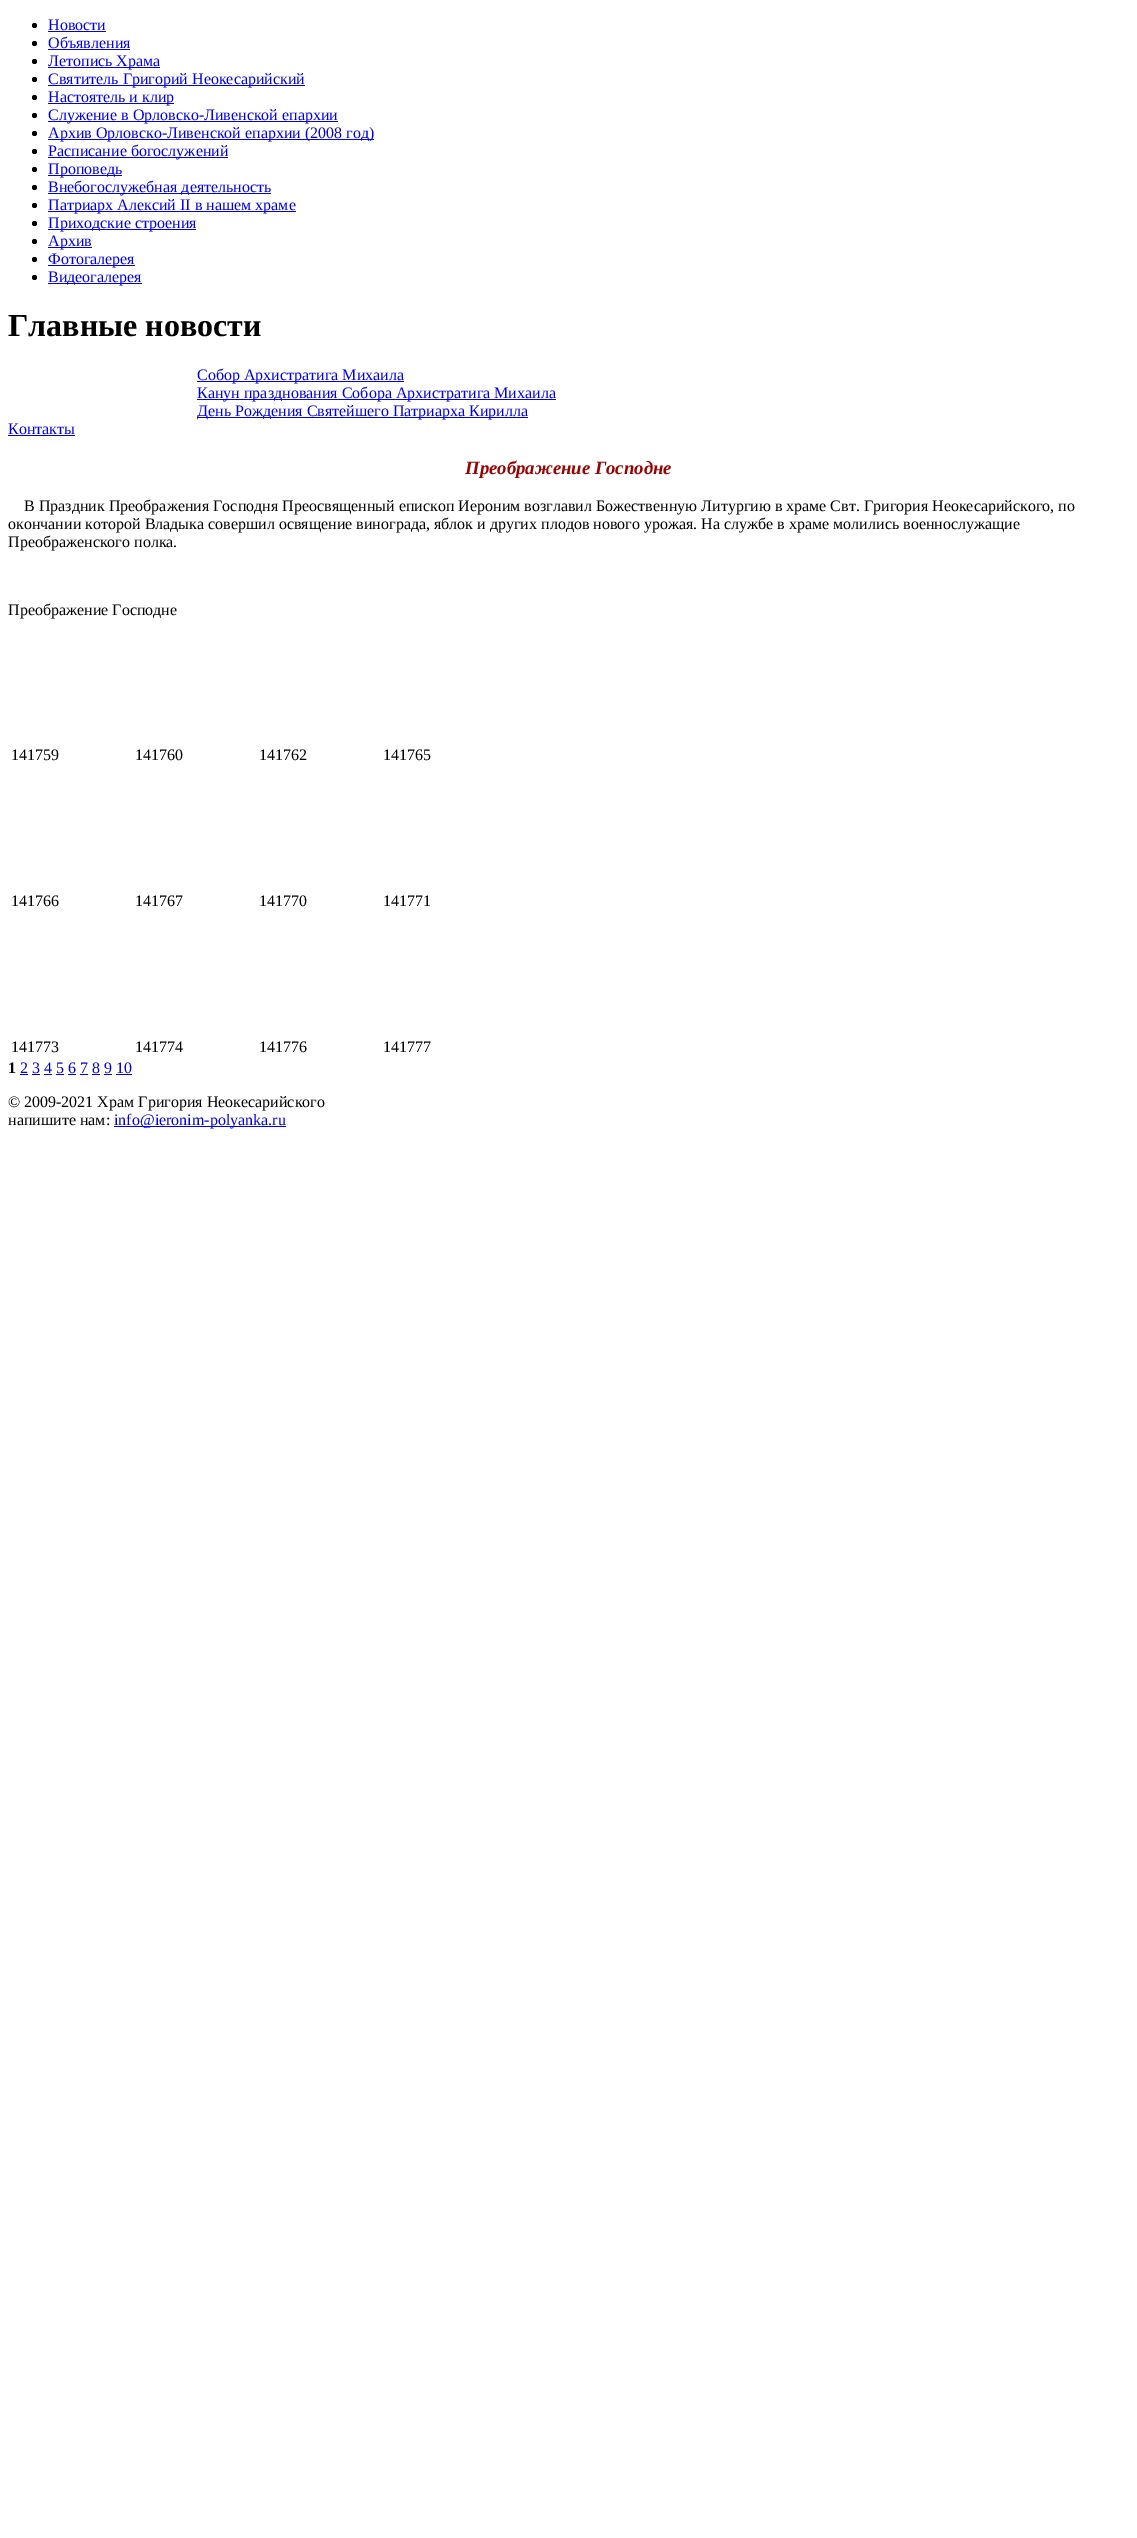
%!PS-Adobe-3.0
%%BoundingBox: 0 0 1137 2538
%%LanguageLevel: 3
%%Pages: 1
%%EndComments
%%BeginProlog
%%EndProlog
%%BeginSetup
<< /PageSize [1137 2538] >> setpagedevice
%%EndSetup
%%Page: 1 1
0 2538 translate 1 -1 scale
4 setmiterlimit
1 setgray
0 0 1137 2538 rectfill
0 setgray
newpath 34.5 25.5 2.5 0 360 arc closepath fill
0 0 0.933 setrgbcolor
48 31 58 1 rectfill
0 setgray
newpath 34.5 43.5 2.5 0 360 arc closepath fill
0 0 0.933 setrgbcolor
48 49 82 1 rectfill
0 setgray
newpath 34.5 61.5 2.5 0 360 arc closepath fill
0 0 0.933 setrgbcolor
48 67 112 1 rectfill
0 setgray
newpath 34.5 79.5 2.5 0 360 arc closepath fill
0 0 0.933 setrgbcolor
48 85 257 1 rectfill
0 setgray
newpath 34.5 97.5 2.5 0 360 arc closepath fill
0 0 0.933 setrgbcolor
48 103 126 1 rectfill
0 setgray
newpath 34.5 115.5 2.5 0 360 arc closepath fill
0 0 0.933 setrgbcolor
48 121 290 1 rectfill
0 setgray
newpath 34.5 133.5 2.5 0 360 arc closepath fill
0 0 0.933 setrgbcolor
48 139 326 1 rectfill
0 setgray
newpath 34.5 151.5 2.5 0 360 arc closepath fill
0 0 0.933 setrgbcolor
48 157 180 1 rectfill
0 setgray
newpath 34.5 169.5 2.5 0 360 arc closepath fill
0 0 0.933 setrgbcolor
48 175 74 1 rectfill
0 setgray
newpath 34.5 187.5 2.5 0 360 arc closepath fill
0 0 0.933 setrgbcolor
48 193 223 1 rectfill
0 setgray
newpath 34.5 205.5 2.5 0 360 arc closepath fill
0 0 0.933 setrgbcolor
48 211 248 1 rectfill
0 setgray
newpath 34.5 223.5 2.5 0 360 arc closepath fill
0 0 0.933 setrgbcolor
48 229 148 1 rectfill
0 setgray
newpath 34.5 241.5 2.5 0 360 arc closepath fill
0 0 0.933 setrgbcolor
48 247 44 1 rectfill
0 setgray
newpath 34.5 259.5 2.5 0 360 arc closepath fill
0 0 0.933 setrgbcolor
48 265 87 1 rectfill
0 setgray
newpath 34.5 277.5 2.5 0 360 arc closepath fill
0 0 0.933 setrgbcolor
48 283 94 1 rectfill
197 381 207 1 rectfill
197 399 359 1 rectfill
197 417 331 1 rectfill
8 435 67 1 rectfill
20 1074 8 1 rectfill
32 1074 8 1 rectfill
44 1074 8 1 rectfill
56 1074 8 1 rectfill
68 1074 8 1 rectfill
80 1074 8 1 rectfill
92 1074 8 1 rectfill
104 1074 8 1 rectfill
116 1074 16 1 rectfill
114 1126 172 1 rectfill
/LiberationSerif-Regular [16 0 0 -16 0 0] selectfont
48 30 moveto (Новости) show
48 48 moveto (Объявления) show
48 66 moveto (Летопись Храма) show
48 84 moveto (Святитель Григорий Неокесарийский) show
48 102 moveto (Настоятель и клир) show
48 120 moveto (Служение в Орловско-Ливенской епархии) show
48 138 moveto (Архив Орловско-Ливенской епархии \(2008 год\)) show
48 156 moveto (Расписание богослужений) show
48 174 moveto (Проповедь) show
48 192 moveto (Внебогослужебная деятельность) show
48 210 moveto (Патриарх Алексий II в нашем храме) show
48 228 moveto (Приходские строения) show
48 246 moveto (Архив) show
48 264 moveto (Фотогалерея) show
48 282 moveto (Видеогалерея) show
/LiberationSerif-Bold [32 0 0 -32 0 0] selectfont
0 setgray
8 336 moveto (Главные новости) show
/LiberationSerif-Regular [16 0 0 -16 0 0] selectfont
0 0 0.933 setrgbcolor
197 380 moveto (Собор Архистратига Михаила) show
197 398 moveto (Канун празднования Собора Архистратига Михаила) show
197 416 moveto (День Рождения Святейшего Патриарха Кирилла) show
8 434 moveto (Контакты) show
/LiberationSerif-BoldItalic [18.75 0 0 -18.75 0 0] selectfont
0.6 0 0 setrgbcolor
465 474 moveto (Пpeoбpaжeниe Гocпoдне) show
/LiberationSerif-Regular [16 0 0 -16 0 0] selectfont
0 setgray
24 511 moveto (В Праздник Преображения Господня Преосвященный епископ Иероним возглавил Божественную Литургию в храме Свт. Григория Неокесарийского, по) show
8 529 moveto (окончании которой Владыка совершил освящение винограда, яблок и других плодов нового урожая. На службе в храме молились военнослужащие) show
8 547 moveto (Преображенского полка.) show
8 615 moveto (Пpeoбpaжeниe Гocпoдне) show
11 760 moveto (141759) show
135 760 moveto (141760) show
259 760 moveto (141762) show
383 760 moveto (141765) show
11 906 moveto (141766) show
135 906 moveto (141767) show
259 906 moveto (141770) show
383 906 moveto (141771) show
11 1052 moveto (141773) show
135 1052 moveto (141774) show
259 1052 moveto (141776) show
383 1052 moveto (141777) show
/LiberationSerif-Bold [16 0 0 -16 0 0] selectfont
8 1073 moveto (1) show
/LiberationSerif-Regular [16 0 0 -16 0 0] selectfont
0 0 0.933 setrgbcolor
20 1073 moveto (2 3 4 5 6 7 8 9 10) show
0 setgray
8 1107 moveto (© 2009-2021 Храм Григория Неокесарийского) show
8 1125 moveto (напишите нам:) show
0 0 0.933 setrgbcolor
114 1125 moveto (info@ieronim-polyanka.ru) show
showpage
%%EOF
